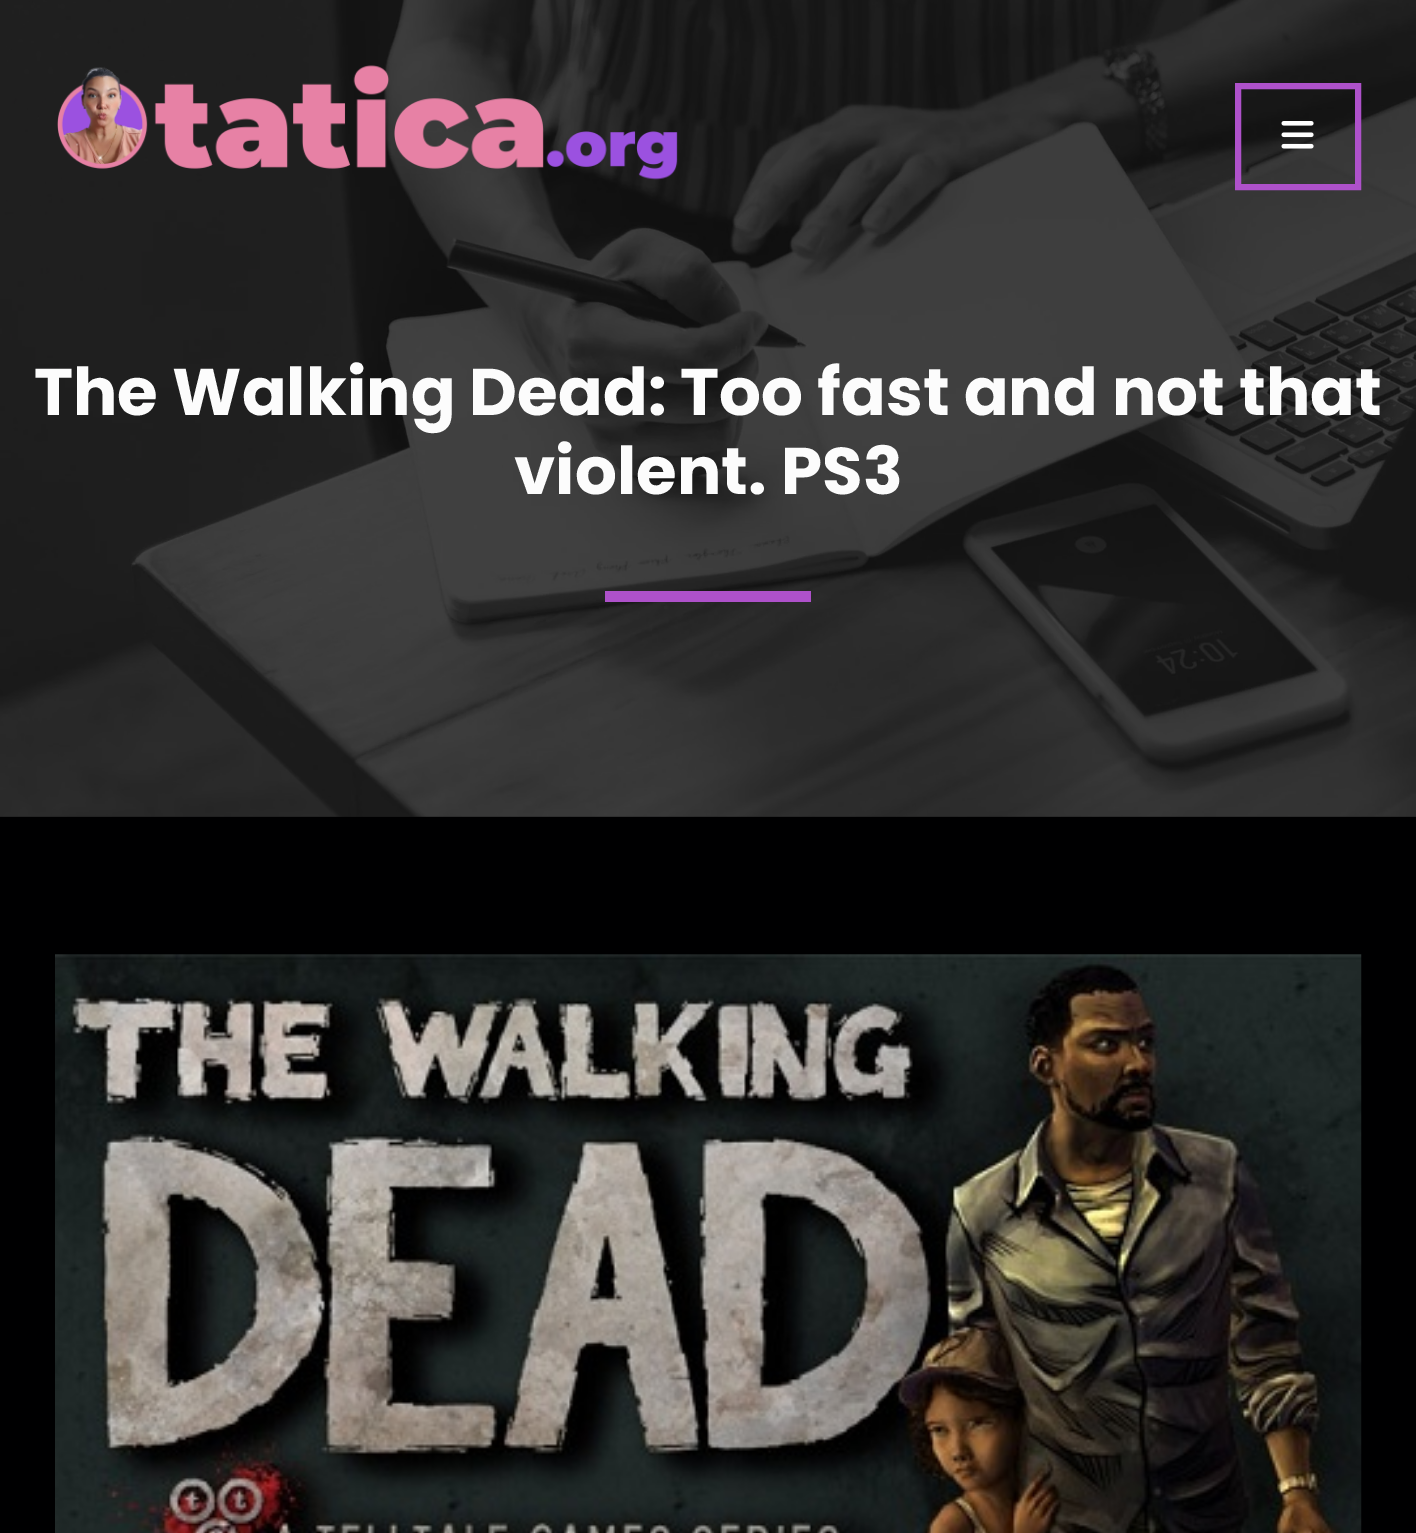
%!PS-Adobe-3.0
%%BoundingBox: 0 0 1416 1533
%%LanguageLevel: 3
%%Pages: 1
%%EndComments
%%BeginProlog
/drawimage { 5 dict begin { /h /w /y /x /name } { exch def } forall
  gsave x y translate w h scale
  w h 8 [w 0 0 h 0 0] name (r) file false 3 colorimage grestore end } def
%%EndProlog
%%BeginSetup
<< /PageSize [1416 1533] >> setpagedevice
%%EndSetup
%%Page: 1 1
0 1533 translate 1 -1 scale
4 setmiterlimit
0 0 0.004 setrgbcolor
0 0 1416 1533 rectfill
(images/3.raw) 0 0 1416 817 drawimage
(images/1.raw) 57 65 621 115 drawimage
0.682 0.318 0.792 setrgbcolor
6 setlinewidth
1238 86 120 101 rectstroke
(images/2.raw) 1281 121 33 28 drawimage
605 591 206 11 rectfill
(images/4.raw) 55 954 1307 579 drawimage
/Poppins-Bold [66 0 0 -66 0 0] selectfont
0.988 setgray
34 415 moveto (The Walking Dead: Too fast and not that) show
514 494 moveto (violent. PS3) show
showpage
%%EOF
